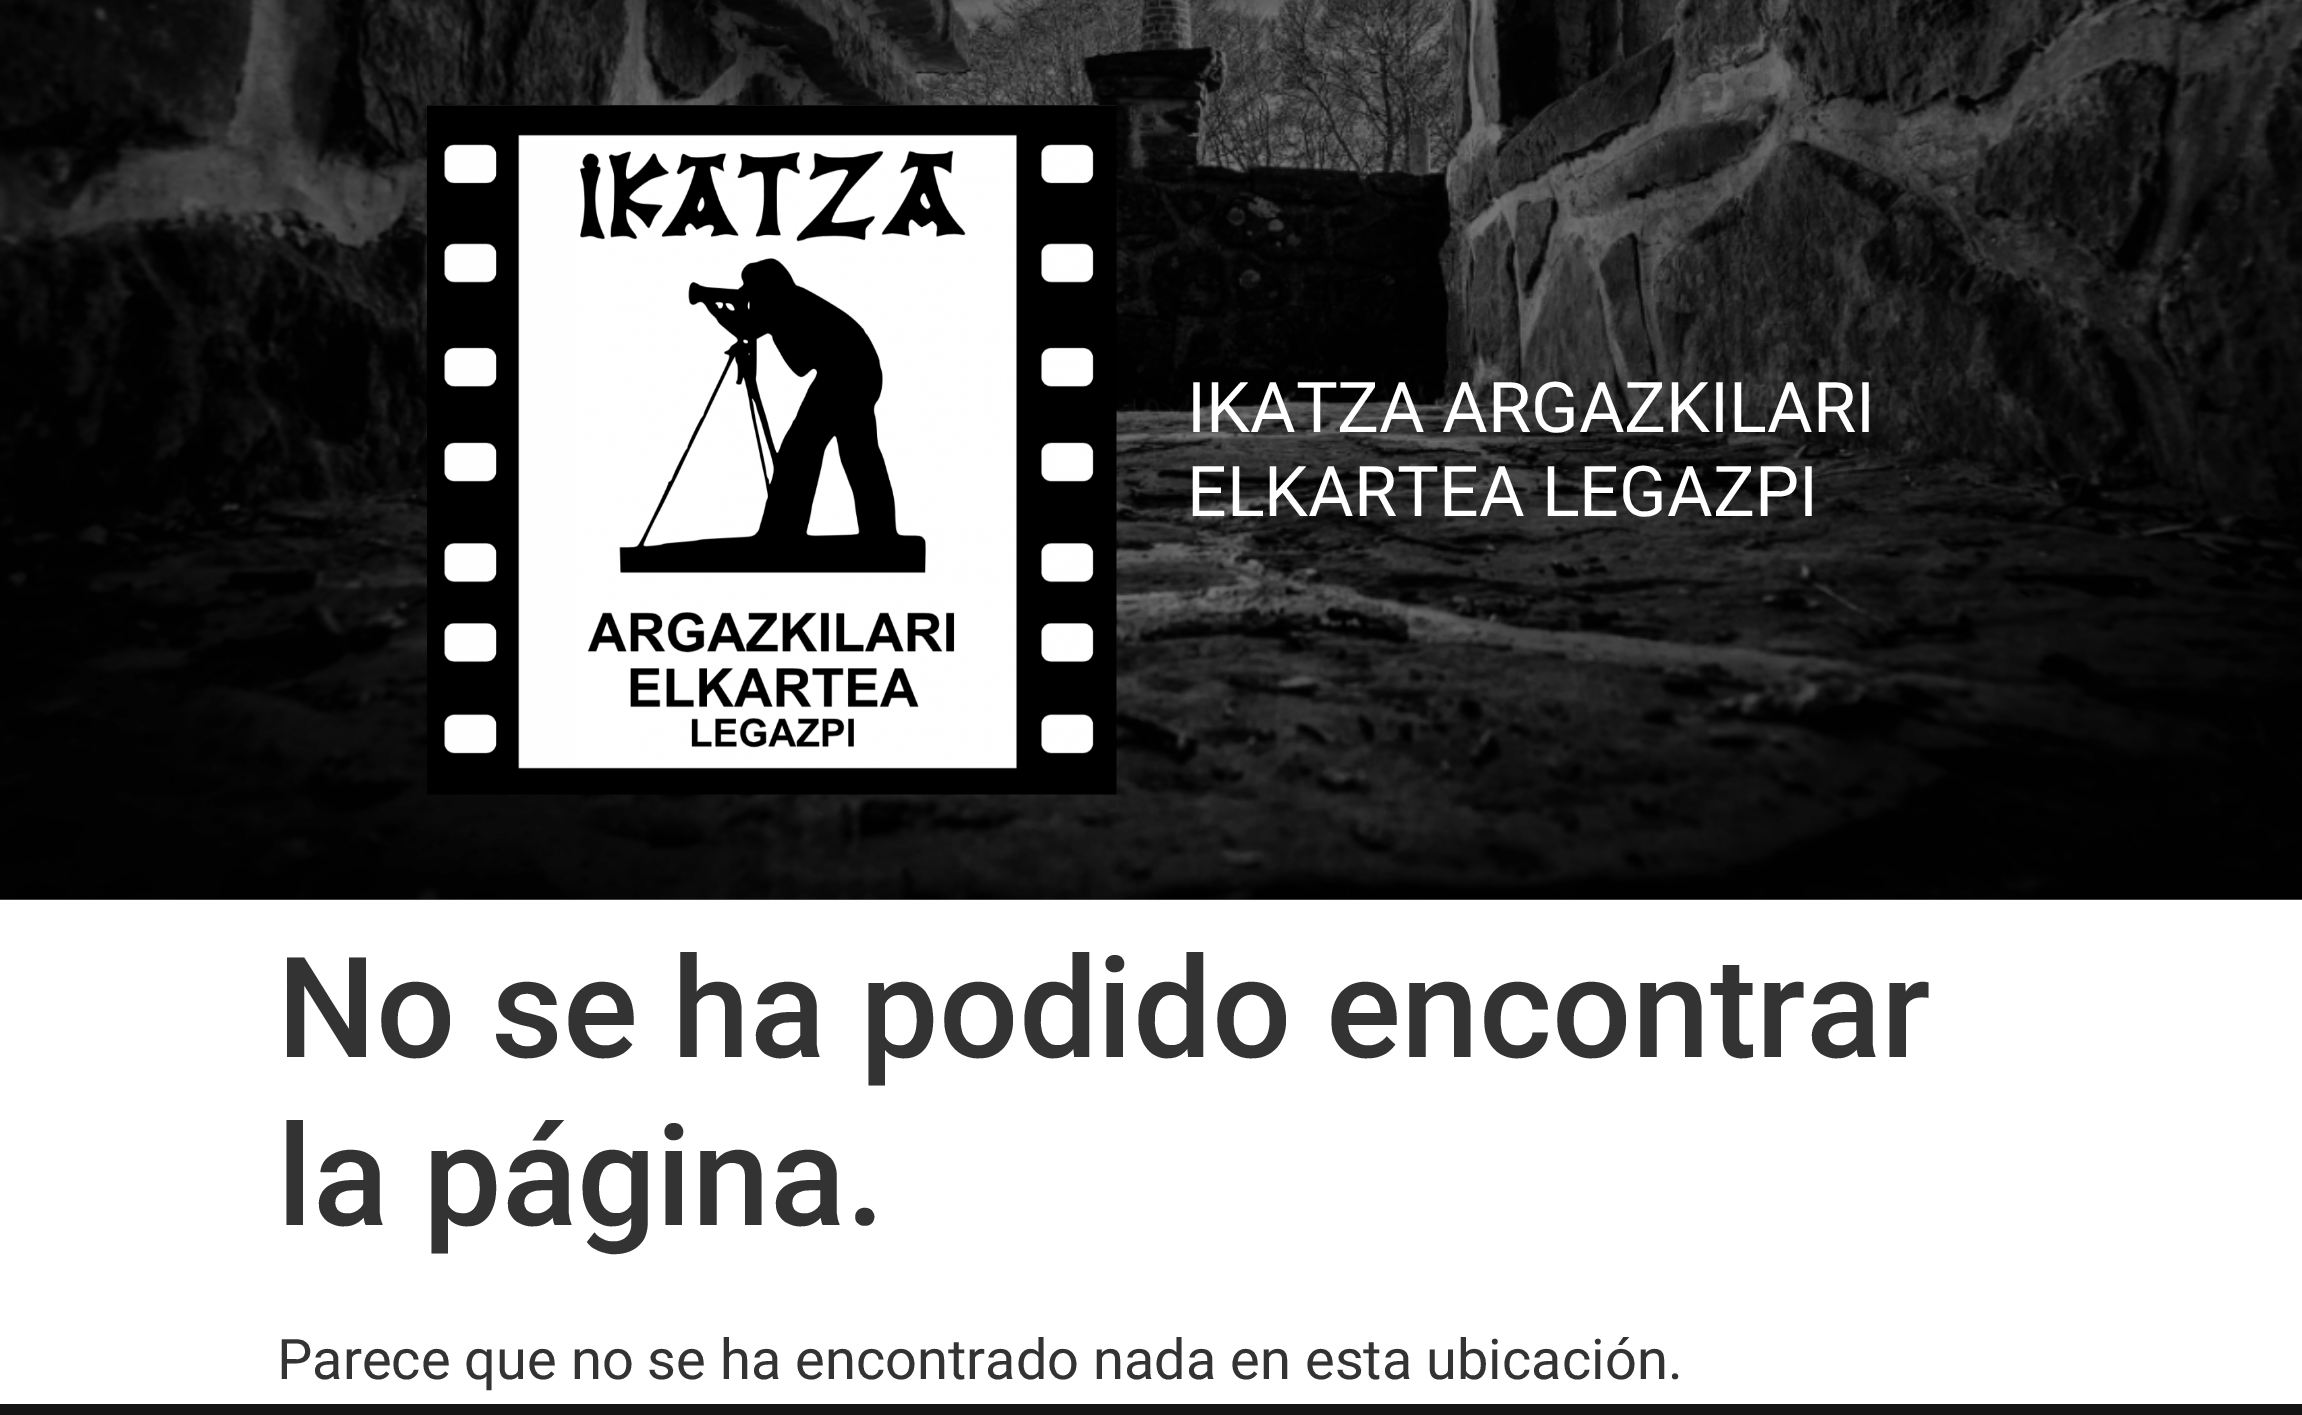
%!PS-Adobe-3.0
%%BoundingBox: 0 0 2302 1415
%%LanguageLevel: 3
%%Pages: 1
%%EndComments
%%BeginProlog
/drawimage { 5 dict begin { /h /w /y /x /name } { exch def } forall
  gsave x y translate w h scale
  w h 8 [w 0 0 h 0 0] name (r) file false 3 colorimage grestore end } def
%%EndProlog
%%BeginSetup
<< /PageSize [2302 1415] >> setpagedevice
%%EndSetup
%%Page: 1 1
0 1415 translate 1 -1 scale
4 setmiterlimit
1 setgray
0 0 2302 1415 rectfill
0.506 setgray
0 899 2302 1 rectfill
(images/1.raw) 0 0 2302 900 drawimage
(images/2.raw) 427 105 690 690 drawimage
0.078 setgray
0 1404 2302 11 rectfill
/Roboto-Regular [70 0 0 -70 0 0] selectfont
1 setgray
1187 432 moveto (IKATZA ARGAZKILARI) show
1187 516 moveto (ELKARTEA LEGAZPI) show
/Roboto-Medium [140 0 0 -140 0 0] selectfont
0.2 setgray
277 1057 moveto (No se ha podido encontrar) show
277 1225 moveto (la página.) show
/Roboto-Regular [56 0 0 -56 0 0] selectfont
277 1379 moveto (Parece que no se ha encontrado nada en esta ubicación.) show
showpage
%%EOF
